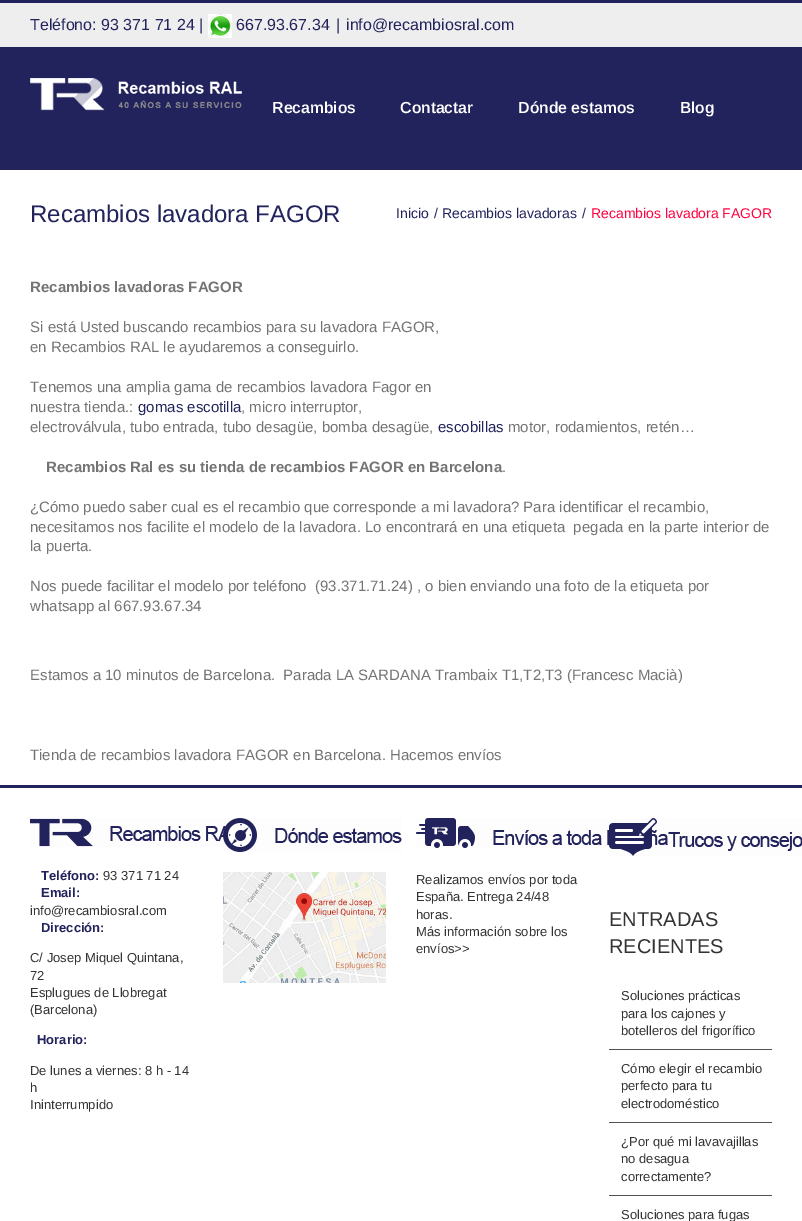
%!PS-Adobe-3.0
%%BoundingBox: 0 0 802 1221
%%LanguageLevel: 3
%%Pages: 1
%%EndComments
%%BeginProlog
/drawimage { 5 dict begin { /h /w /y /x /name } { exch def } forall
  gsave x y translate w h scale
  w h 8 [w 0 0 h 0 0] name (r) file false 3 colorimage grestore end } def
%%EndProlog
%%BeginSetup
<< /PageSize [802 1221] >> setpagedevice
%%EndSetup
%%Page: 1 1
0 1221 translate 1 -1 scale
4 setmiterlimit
1 setgray
0 0 802 1221 rectfill
0.933 setgray
0 3 802 44 rectfill
0.133 0.137 0.361 setrgbcolor
0 0 802 3 rectfill
0 47 802 123 rectfill
(images/1.raw) 208 14 24 24 drawimage
(images/2.raw) 30 78 212 33 drawimage
0 785 802 3 rectfill
(images/3.raw) 30 818 196 29 drawimage
(images/4.raw) 223 818 179 34 drawimage
(images/5.raw) 223 872 163 111 drawimage
(images/6.raw) 416 818 252 31 drawimage
(images/7.raw) 609 818 193 38 drawimage
0.314 0.318 0.322 setrgbcolor
609 1049 163 1 rectfill
609 1122 163 1 rectfill
609 1195 163 1 rectfill
/Arimo-Regular [16 0 0 -16 0 0] selectfont
0.133 0.137 0.361 setrgbcolor
30 30 moveto (Teléfono: 93 371 71 24 |) show
236 30 moveto (667.93.67.34) show
336 30 moveto (|) show
346 30 moveto (info@recambiosral.com) show
/Arimo-SemiBold [16 0 0 -16 0 0] selectfont
1 setgray
272 113 moveto (Recambios) show
400 113 moveto (Contactar) show
518 113 moveto (Dónde estamos) show
680 113 moveto (Blog) show
/Arimo-Regular [24 0 0 -24 0 0] selectfont
0.133 0.137 0.361 setrgbcolor
30 222 moveto (Recambios lavadora FAGOR) show
/Arimo-Regular [14 0 0 -14 0 0] selectfont
396 218 moveto (Inicio) show
434 218 moveto (/) show
442 218 moveto (Recambios lavadoras) show
582 218 moveto (/) show
1 0 0.251 setrgbcolor
591 218 moveto (Recambios lavadora FAGOR) show
/Arimo-Bold [15 0 0 -15 0 0] selectfont
0.455 setgray
30 292 moveto (Recambios lavadoras FAGOR) show
/Arimo-Regular [15 0 0 -15 0 0] selectfont
30 332 moveto (Si está Usted buscando recambios para su lavadora FAGOR,) show
30 352 moveto (en Recambios RAL le ayudaremos a conseguirlo.) show
30 392 moveto (Tenemos una amplia gama de recambios lavadora Fagor en) show
30 412 moveto (nuestra tienda.:) show
0.133 0.137 0.361 setrgbcolor
138 412 moveto (gomas escotilla) show
0.455 setgray
241 412 moveto (, micro interruptor,) show
30 432 moveto (electroválvula, tubo entrada, tubo desagüe, bomba desagüe,) show
0.133 0.137 0.361 setrgbcolor
438 432 moveto (escobillas) show
0.455 setgray
508 432 moveto (motor, rodamientos, retén…) show
/Arimo-Bold [15 0 0 -15 0 0] selectfont
46 472 moveto (Recambios Ral es su tienda de recambios FAGOR en Barcelona) show
/Arimo-Regular [15 0 0 -15 0 0] selectfont
502 472 moveto (.) show
30 512 moveto (¿Cómo puedo saber cual es el recambio que corresponde a mi lavadora? Para identificar el recambio,) show
30 532 moveto (necesitamos nos facilite el modelo de la lavadora. Lo encontrará en una etiqueta  pegada en la parte interior de) show
30 551 moveto (la puerta.) show
30 591 moveto (Nos puede facilitar el modelo por teléfono  \(93.371.71.24\) , o bien enviando una foto de la etiqueta por) show
30 611 moveto (whatsapp al 667.93.67.34) show
30 680 moveto (Estamos a 10 minutos de Barcelona.  Parada LA SARDANA Trambaix T1,T2,T3 \(Francesc Macià\)) show
30 760 moveto (Tienda de recambios lavadora FAGOR en Barcelona. Hacemos envíos) show
/Arimo-Bold [13 0 0 -13 0 0] selectfont
0.133 0.137 0.361 setrgbcolor
41 880 moveto (Teléfono:) show
/Arimo-Regular [13 0 0 -13 0 0] selectfont
0.2 setgray
103 880 moveto (93 371 71 24) show
/Arimo-Bold [13 0 0 -13 0 0] selectfont
0.133 0.137 0.361 setrgbcolor
41 897 moveto (Email:) show
/Arimo-Regular [13 0 0 -13 0 0] selectfont
0.2 setgray
30 915 moveto (info@recambiosral.com) show
/Arimo-Bold [13 0 0 -13 0 0] selectfont
0.133 0.137 0.361 setrgbcolor
41 932 moveto (Dirección:) show
/Arimo-Regular [13 0 0 -13 0 0] selectfont
0.2 setgray
30 962 moveto (C/ Josep Miquel Quintana,) show
30 980 moveto (72) show
30 997 moveto (Esplugues de Llobregat) show
30 1014 moveto (\(Barcelona\)) show
/Arimo-Bold [13 0 0 -13 0 0] selectfont
0.133 0.137 0.361 setrgbcolor
37 1044 moveto (Horario:) show
/Arimo-Regular [13 0 0 -13 0 0] selectfont
0.2 setgray
30 1075 moveto (De lunes a viernes: 8 h - 14) show
30 1092 moveto (h) show
30 1109 moveto (Ininterrumpido) show
416 884 moveto (Realizamos envíos por toda) show
416 901 moveto (España. Entrega 24/48) show
416 919 moveto (horas.) show
416 936 moveto (Más información sobre los) show
416 953 moveto (envíos>>) show
/Arimo-Regular [20 0 0 -20 0 0] selectfont
609 926 moveto (ENTRADAS) show
609 953 moveto (RECIENTES) show
/Arimo-Regular [13 0 0 -13 0 0] selectfont
621 1000 moveto (Soluciones prácticas) show
621 1018 moveto (para los cajones y) show
621 1035 moveto (botelleros del frigorífico) show
621 1073 moveto (Cómo elegir el recambio) show
621 1090 moveto (perfecto para tu) show
621 1108 moveto (electrodoméstico) show
621 1146 moveto (¿Por qué mi lavavajillas) show
621 1163 moveto (no desagua) show
621 1181 moveto (correctamente?) show
621 1219 moveto (Soluciones para fugas) show
showpage
%%EOF
